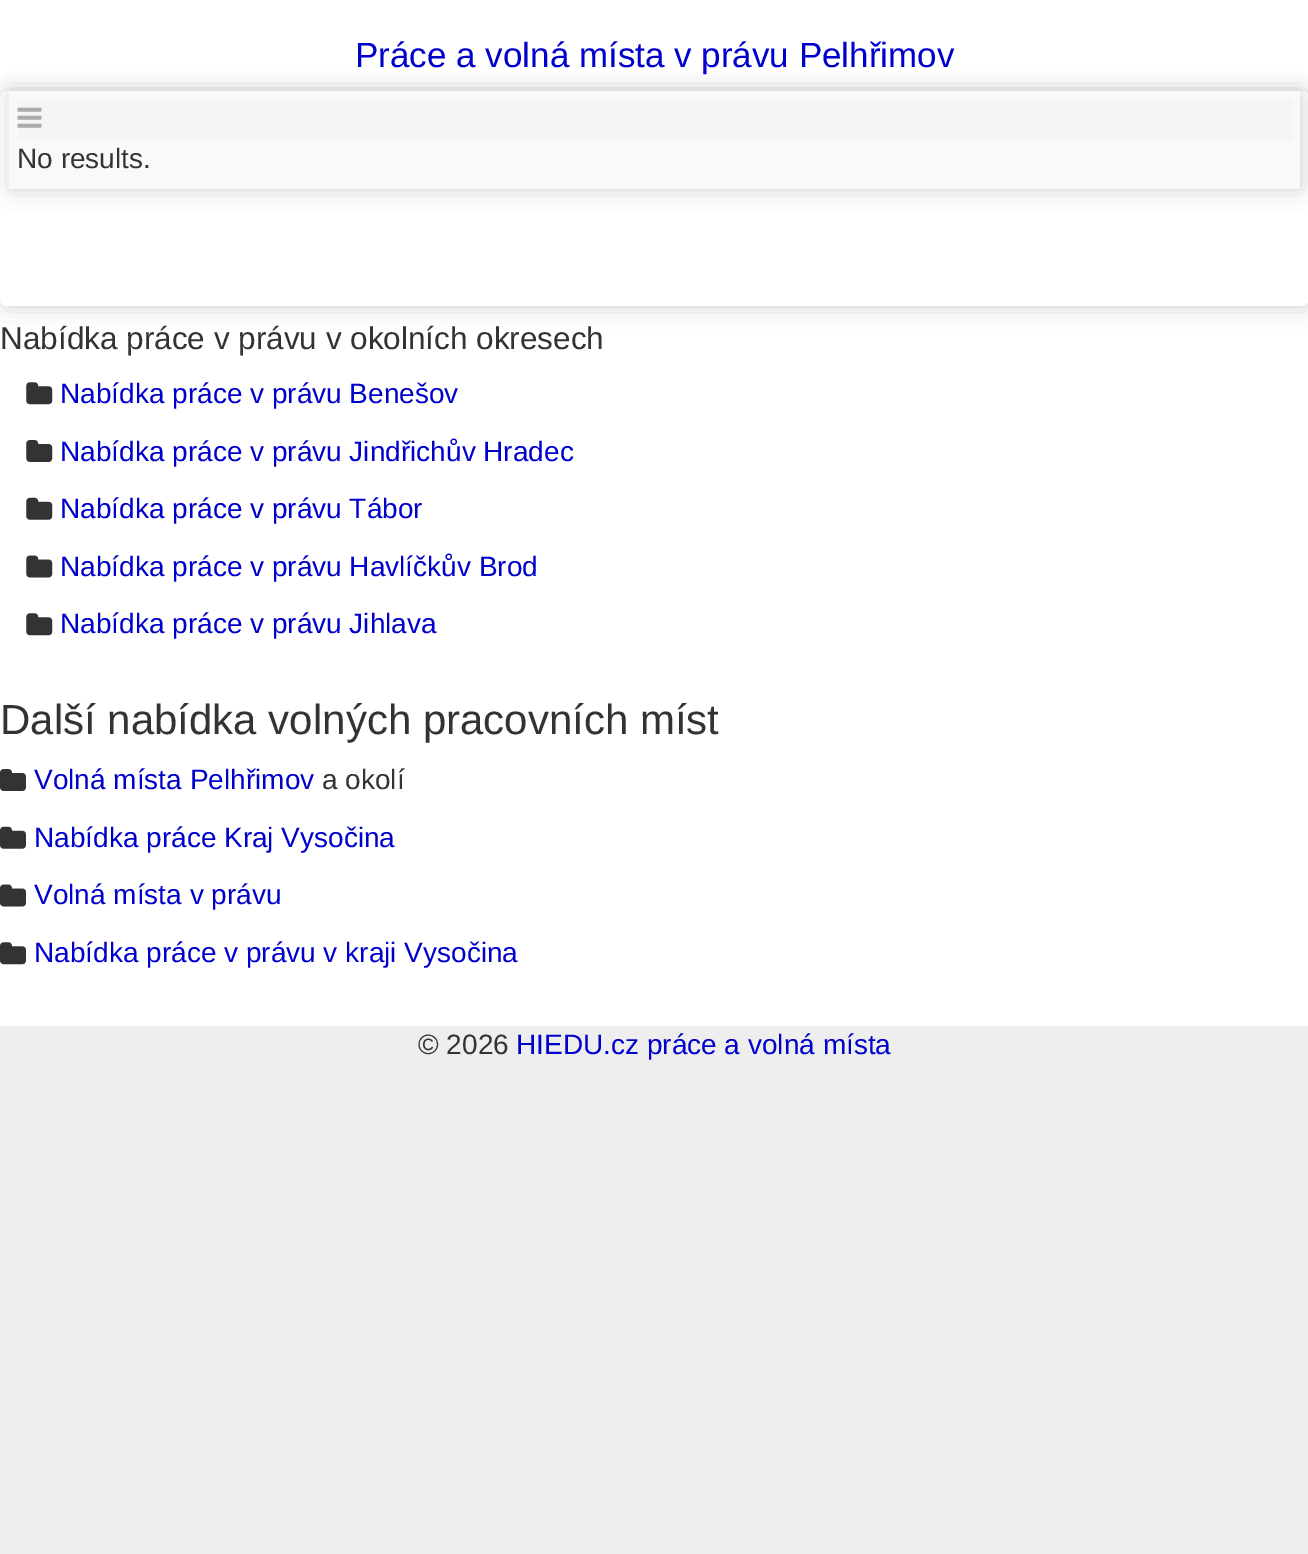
%!PS-Adobe-3.0
%%BoundingBox: 0 0 1308 1554
%%LanguageLevel: 3
%%Pages: 1
%%EndComments
%%BeginProlog
/setalpha { dup .setfillconstantalpha .setstrokeconstantalpha } def
/rrect { 5 dict begin { /r /h /w /y /x } { exch def } forall
  x r add y moveto x w add y 2 copy h add r arct x w add y h add x 1 index r arct
  x y h add x y r arct x y 2 copy exch w add exch r arct closepath end } def
/softshadow { 12 dict begin { /a /b /q /h /w /y /x } { exch def } forall gsave /was 0 def
  9 -2 -9 { dup b mul 4 div /e exch def 1 sub .425 mul 2.718 exch exp 1 add a .99 .min exch div /now exch def
    1 1 now sub 1 was sub div sub setalpha /was now def
    w h .min e 2 mul add 0 gt { x e sub y e sub w e 2 mul add h e 2 mul add
      q e add b .6 mul add w h .min 2 div e add .min 0 .max rrect fill } if } for grestore end } def
/drawimage { 5 dict begin { /h /w /y /x /name } { exch def } forall
  gsave x y translate w h scale
  w h 8 [w 0 0 h 0 0] name (r) file false 3 colorimage grestore end } def
%%EndProlog
%%BeginSetup
<< /PageSize [1308 1554] /PageUsesTransparency true >> setpagedevice
%%EndSetup
%%Page: 1 1
0 .pushpdf14devicefilter
0 1554 translate 1 -1 scale
4 setmiterlimit
0.933 setgray
0 0 1308 1554 rectfill
1 setgray
0 0 1308 1026 rectfill
0 setgray
4 95 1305 211 5 10.5 0.2 softshadow
1 setgray
0 91 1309 215 7 rrect fill
0 setgray
12 95 1288 94 0 10.5 0.2 softshadow
0.976 setgray
9 91 1291 98 rectfill
0.961 setgray
18 100 1274 40 rectfill
(images/1.raw) 17 107 25 21 drawimage
(images/2.raw) 26 382 27 23 drawimage
(images/3.raw) 26 440 27 22 drawimage
(images/4.raw) 26 497 27 23 drawimage
(images/5.raw) 26 555 27 23 drawimage
(images/2.raw) 26 613 27 23 drawimage
(images/6.raw) 0 769 26 22 drawimage
(images/7.raw) 0 826 26 23 drawimage
(images/8.raw) 0 884 26 23 drawimage
(images/9.raw) 0 942 26 23 drawimage
/LiberationSans-Regular [35 0 0 -35 0 0] selectfont
0 0 0.8 setrgbcolor
355 67 moveto (Práce a volná místa v právu Pelhřimov) show
/LiberationSans-Regular [28 0 0 -28 0 0] selectfont
0.2 setgray
17 168 moveto (No results.) show
/LiberationSans-Regular [31.5 0 0 -31.5 0 0] selectfont
0 349 moveto (Nabídka práce v právu v okolních okresech) show
/LiberationSans-Regular [28 0 0 -28 0 0] selectfont
0 0 0.8 setrgbcolor
60 403 moveto (Nabídka práce v právu Benešov) show
60 461 moveto (Nabídka práce v právu Jindřichův Hradec) show
60 518 moveto (Nabídka práce v právu Tábor) show
60 576 moveto (Nabídka práce v právu Havlíčkův Brod) show
60 633 moveto (Nabídka práce v právu Jihlava) show
/LiberationSans-Regular [42 0 0 -42 0 0] selectfont
0.2 setgray
0 734 moveto (Další nabídka volných pracovních míst) show
/LiberationSans-Regular [28 0 0 -28 0 0] selectfont
0 0 0.8 setrgbcolor
34 789 moveto (Volná místa Pelhřimov) show
0.2 setgray
322 789 moveto (a okolí) show
0 0 0.8 setrgbcolor
34 847 moveto (Nabídka práce Kraj Vysočina) show
34 904 moveto (Volná místa v právu) show
34 962 moveto (Nabídka práce v právu v kraji Vysočina) show
0.2 setgray
418 1054 moveto (© 2026) show
0 0 0.8 setrgbcolor
516 1054 moveto (HIEDU.cz práce a volná místa) show
.poppdf14devicefilter showpage
%%EOF
